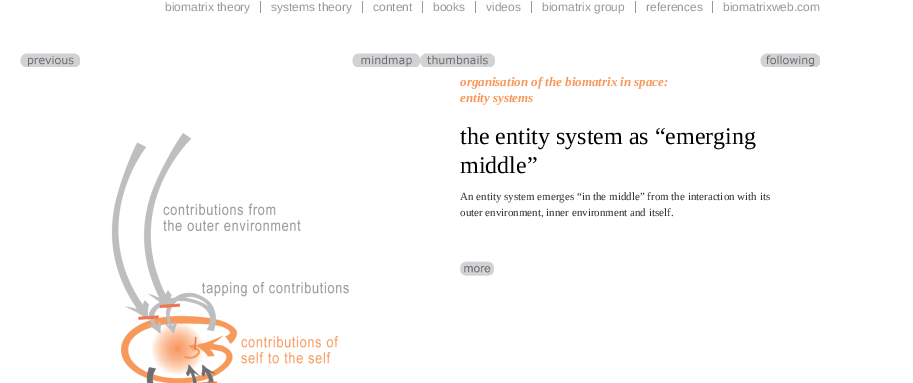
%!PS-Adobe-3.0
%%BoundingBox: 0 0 913 383
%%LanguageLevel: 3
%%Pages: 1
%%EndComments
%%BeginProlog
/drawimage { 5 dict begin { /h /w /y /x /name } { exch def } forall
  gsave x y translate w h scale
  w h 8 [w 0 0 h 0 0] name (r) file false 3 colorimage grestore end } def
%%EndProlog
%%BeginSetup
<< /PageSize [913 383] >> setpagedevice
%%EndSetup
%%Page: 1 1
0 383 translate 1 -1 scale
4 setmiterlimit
1 setgray
0 0 913 383 rectfill
0.6 setgray
260 1 1 12 rectfill
362 1 1 12 rectfill
422 1 1 12 rectfill
475 1 1 12 rectfill
531 1 1 12 rectfill
635 1 1 12 rectfill
712 1 1 12 rectfill
(images/1.raw) 20 53 60 14 drawimage
(images/2.raw) 352 53 68 14 drawimage
(images/3.raw) 420 53 75 14 drawimage
(images/4.raw) 760 53 60 14 drawimage
(images/5.raw) 111 133 238 250 drawimage
(images/6.raw) 460 261 34 15 drawimage
/LiberationSans-Regular [12 0 0 -12 0 0] selectfont
165 11 moveto (biomatrix theory) show
271 11 moveto (systems theory) show
373 11 moveto (content) show
433 11 moveto (books) show
486 11 moveto (videos) show
542 11 moveto (biomatrix group) show
646 11 moveto (references) show
723 11 moveto (biomatrixweb.com) show
/LiberationSerif-BoldItalic [13 0 0 -13 0 0] selectfont
0.973 0.596 0.353 setrgbcolor
460 86 moveto (organisation of the biomatrix in space:) show
460 102 moveto (entity systems) show
/LiberationSerif-Regular [24 0 0 -24 0 0] selectfont
0 setgray
460 144 moveto (the entity system as “emerging) show
460 173 moveto (middle”) show
/LiberationSerif-Regular [11 0 0 -11 0 0] selectfont
0.2 setgray
460 200 moveto (An entity system emerges “in the middle” from the interaction with its) show
460 216 moveto (outer environment, inner environment and itself.) show
showpage
%%EOF
